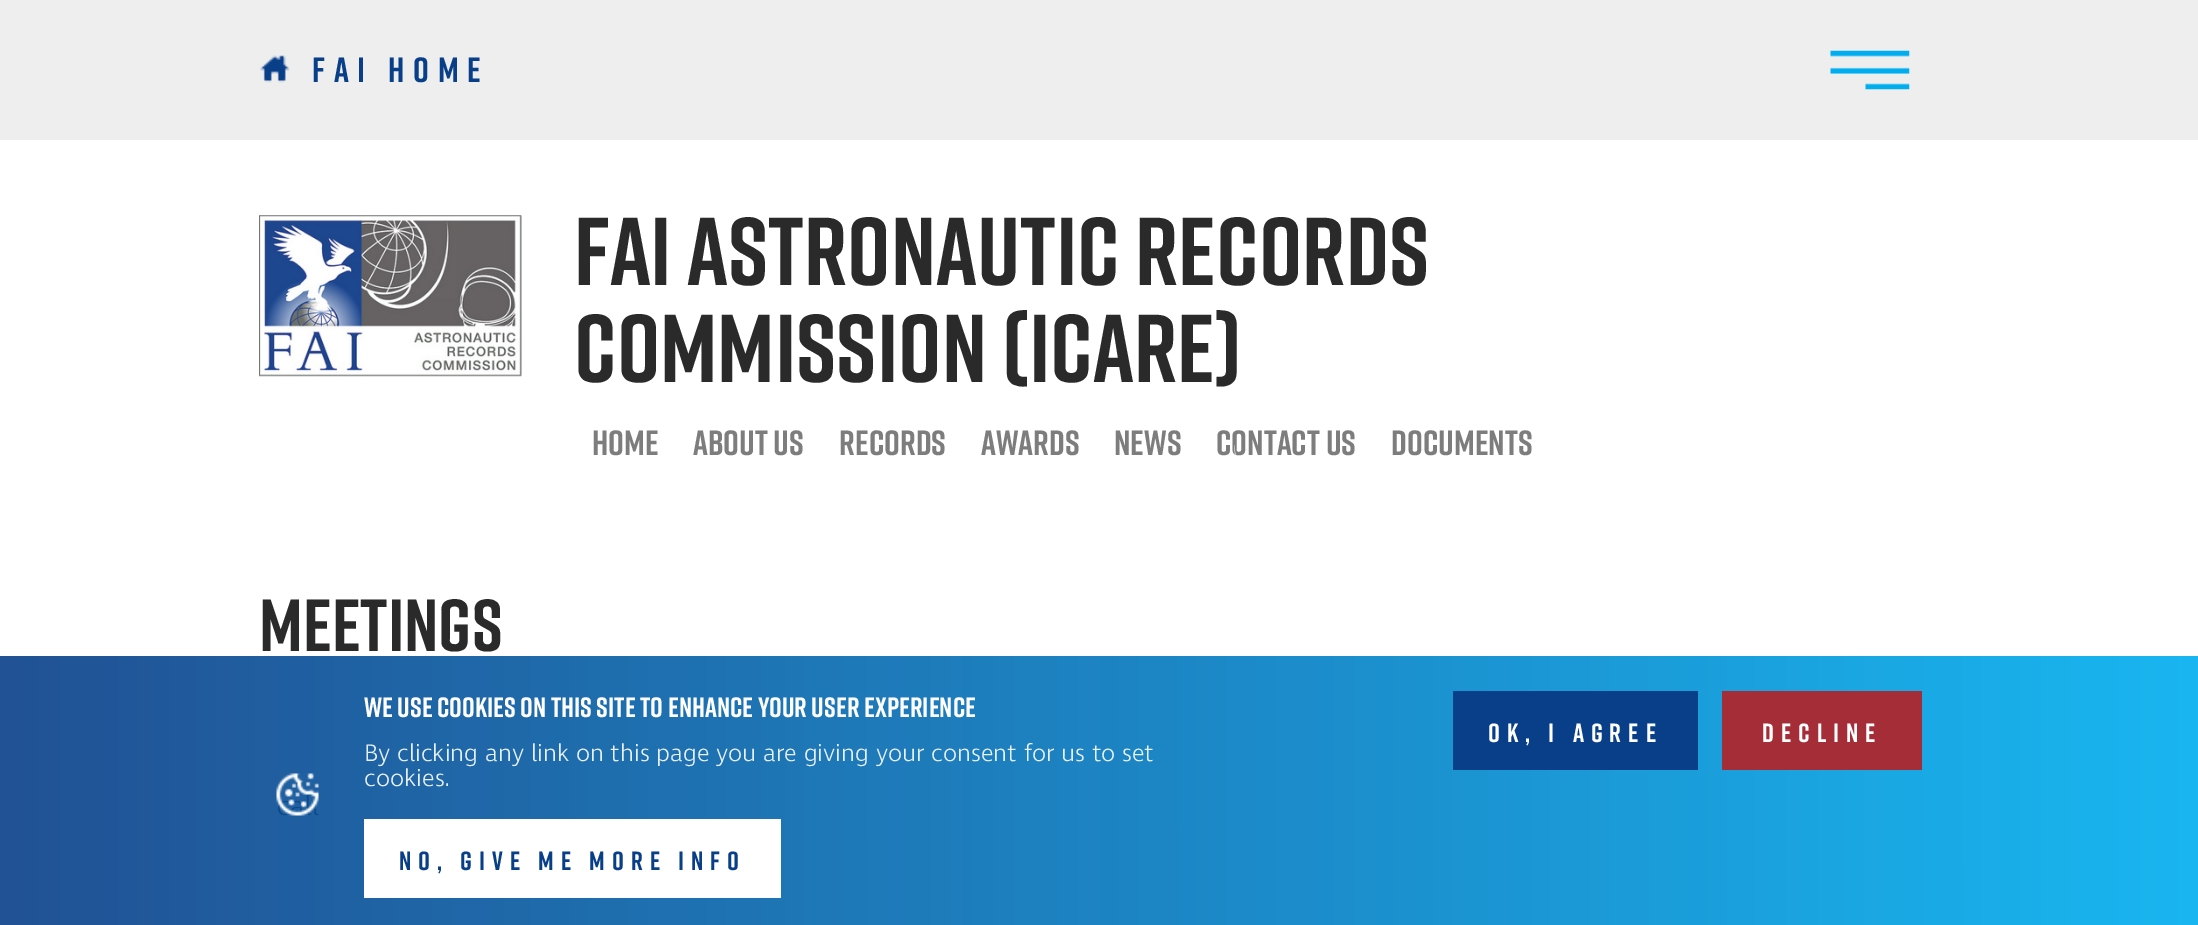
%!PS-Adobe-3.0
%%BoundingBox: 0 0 2198 925
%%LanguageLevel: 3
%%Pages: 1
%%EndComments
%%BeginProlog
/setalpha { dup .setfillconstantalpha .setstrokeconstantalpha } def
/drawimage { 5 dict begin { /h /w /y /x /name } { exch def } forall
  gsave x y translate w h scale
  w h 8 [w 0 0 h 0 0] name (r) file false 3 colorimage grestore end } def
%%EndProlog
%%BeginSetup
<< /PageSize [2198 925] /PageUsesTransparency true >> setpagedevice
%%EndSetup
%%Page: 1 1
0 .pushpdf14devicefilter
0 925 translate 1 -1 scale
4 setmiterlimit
1 setgray
0 0 2198 925 rectfill
0.933 setgray
0 0 2198 140 rectfill
(images/1.raw) 260 55 30 28 drawimage
(images/2.raw) 1830 50 80 40 drawimage
(images/3.raw) 259 215 263 162 drawimage
0.9 setalpha
gsave newpath 0 656 moveto 2198 656 lineto 2198 925 lineto 0 925 lineto closepath clip newpath
<< /ShadingType 2 /ColorSpace /DeviceRGB /Coords [0 795 2198 794] /Extend [true true] /Function << /FunctionType 2 /Domain [0 1] /C0 [0.035 0.247 0.537] /C1 [0 0.682 0.937] /N 1 >> >> shfill grestore
1 setalpha
(images/4.raw) 276 773 43 43 drawimage
1 setgray
364 819 417 79 rectfill
0.035 0.247 0.537 setrgbcolor
1453 691 245 79 rectfill
0.647 0.176 0.216 setrgbcolor
1722 691 200 79 rectfill
/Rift-Bold [35 0 0 -35 0 0] selectfont
0.035 0.247 0.537 setrgbcolor
312 82 moveto 8.75 0 (FAI HOME) ashow
/Rift-Bold [96.25 0 0 -96.25 0 0] selectfont
0.165 setgray
574 285 moveto (FAI ASTRONAUTIC RECORDS) show
574 382 moveto (COMMISSION \(ICARE\)) show
/Rift-Bold [35 0 0 -35 0 0] selectfont
0.49 setgray
592 455 moveto (HOME) show
693 455 moveto (ABOUT US) show
839 455 moveto (RECORDS) show
981 455 moveto (AWARDS) show
1114 455 moveto (NEWS) show
1216 455 moveto (CONTACT US) show
1391 455 moveto (DOCUMENTS) show
/Rift-Bold [73.5 0 0 -73.5 0 0] selectfont
0.165 setgray
259 651 moveto (MEETINGS) show
1 setgray
newpath 966 460 moveto 964 490 972 520 989 545 curveto 1003 566 1024 583 1048 593 curveto 1147 635 1254 551 1234 445 curveto 1249 548 1145 629 1048 588 curveto 1024 578 1004 561 989 540 curveto 974 516 965 488 966 460 curveto closepath fill
/Rift-Bold [28 0 0 -28 0 0] selectfont
364 717 moveto (We use cookies on this site to enhance your user experience) show
/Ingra-Light [24.5 0 0 -24.5 0 0] selectfont
0.91 0.945 0.969 setrgbcolor
364 761 moveto (By clicking any link on this page you are giving your consent for us to set) show
364 786 moveto (cookies.) show
/Rift-Bold [26.25 0 0 -26.25 0 0] selectfont
0.035 0.247 0.537 setrgbcolor
399 870 moveto 7 0 (NO, GIVE ME MORE INFO) ashow
1 setgray
1488 742 moveto 7 0 (OK, I AGREE) ashow
1762 742 moveto 7 0 (DECLINE) ashow
.poppdf14devicefilter showpage
%%EOF
